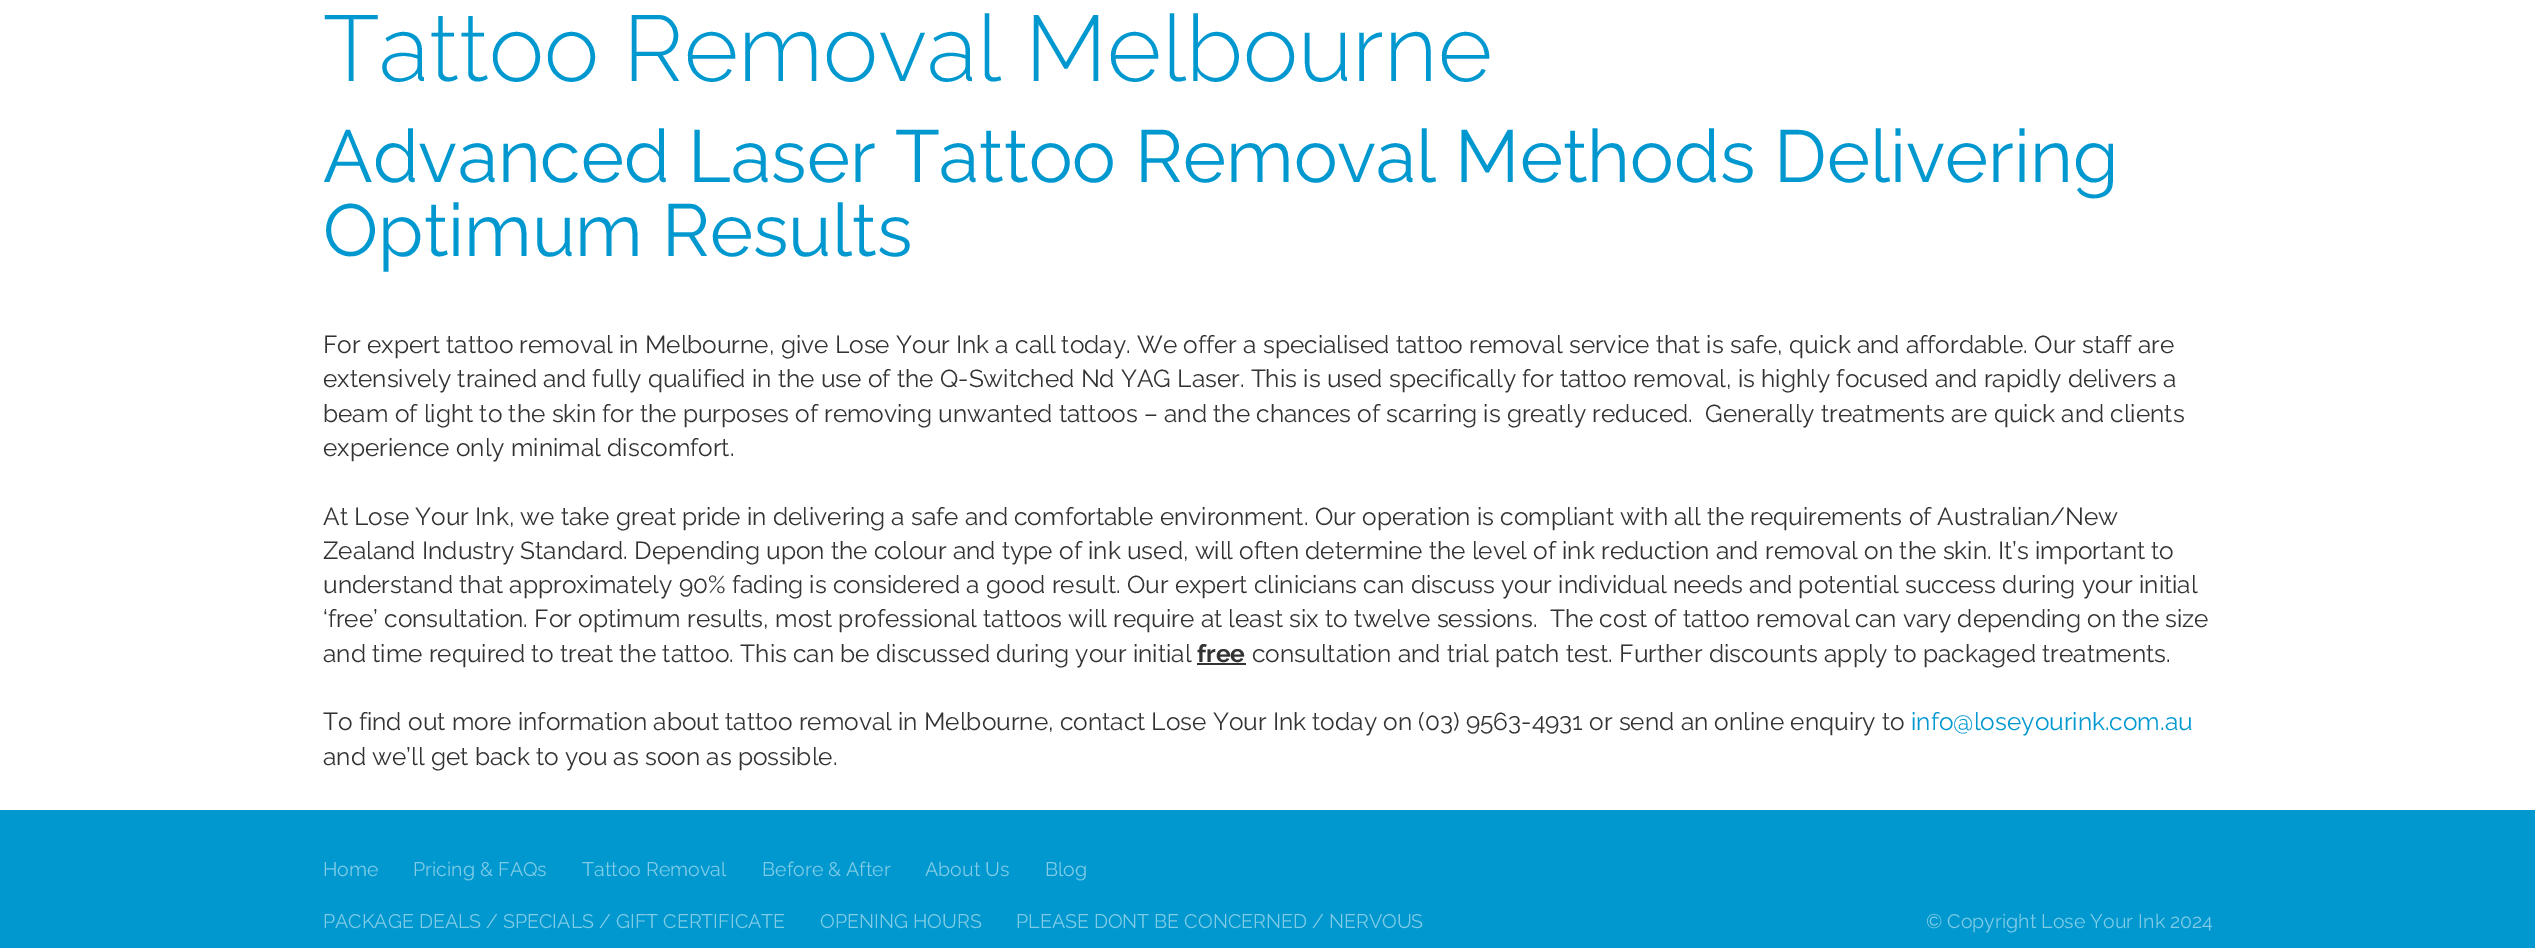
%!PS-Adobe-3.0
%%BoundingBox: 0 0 2535 948
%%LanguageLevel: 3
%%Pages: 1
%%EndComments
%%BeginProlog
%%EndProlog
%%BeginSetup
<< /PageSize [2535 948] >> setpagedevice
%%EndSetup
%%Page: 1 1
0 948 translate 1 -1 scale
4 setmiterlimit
1 setgray
0 0 2535 948 rectfill
0.2 setgray
1197 663 49 2 rectfill
0 0.596 0.812 setrgbcolor
0 810 2535 138 rectfill
/Raleway-Light [93.1 0 0 -93.1 0 0] selectfont
323 81 moveto (Tattoo Removal Melbourne) show
/Raleway-Regular [73.5 0 0 -73.5 0 0] selectfont
323 182 moveto (Advanced Laser Tattoo Removal Methods Delivering) show
323 256 moveto (Optimum Results) show
/Raleway-Regular [24.5 0 0 -24.5 0 0] selectfont
0.2 setgray
323 353 moveto (For expert tattoo removal in Melbourne, give Lose Your Ink a call today. We offer a specialised tattoo removal service that is safe, quick and affordable. Our staff are) show
323 387 moveto (extensively trained and fully qualified in the use of the Q-Switched Nd YAG Laser. This is used specifically for tattoo removal, is highly focused and rapidly delivers a) show
323 422 moveto (beam of light to the skin for the purposes of removing unwanted tattoos – and the chances of scarring is greatly reduced.  Generally treatments are quick and clients) show
323 456 moveto (experience only minimal discomfort.) show
323 525 moveto (At Lose Your Ink, we take great pride in delivering a safe and comfortable environment. Our operation is compliant with all the requirements of Australian/New) show
323 559 moveto (Zealand Industry Standard. Depending upon the colour and type of ink used, will often determine the level of ink reduction and removal on the skin. It’s important to) show
323 593 moveto (understand that approximately 90% fading is considered a good result. Our expert clinicians can discuss your individual needs and potential success during your initial) show
323 627 moveto (‘free’ consultation. For optimum results, most professional tattoos will require at least six to twelve sessions.  The cost of tattoo removal can vary depending on the size) show
323 662 moveto (and time required to treat the tattoo. This can be discussed during your initial) show
/Raleway-Bold [24.5 0 0 -24.5 0 0] selectfont
1197 662 moveto (free) show
/Raleway-Regular [24.5 0 0 -24.5 0 0] selectfont
1252 662 moveto (consultation and trial patch test. Further discounts apply to packaged treatments.) show
323 730 moveto (To find out more information about tattoo removal in Melbourne, contact Lose Your Ink today on \(03\) 9563-4931 or send an online enquiry to) show
0 0.596 0.812 setrgbcolor
1911 730 moveto (info@loseyourink.com.au) show
0.2 setgray
323 765 moveto (and we’ll get back to you as soon as possible.) show
/Raleway-Regular [19.6 0 0 -19.6 0 0] selectfont
0.502 0.8 0.906 setrgbcolor
323 876 moveto (Home) show
413 876 moveto (Pricing & FAQs) show
582 876 moveto (Tattoo Removal) show
762 876 moveto (Before & After) show
925 876 moveto (About Us) show
1045 876 moveto (Blog) show
323 928 moveto (PACKAGE DEALS / SPECIALS / GIFT CERTIFICATE) show
820 928 moveto (OPENING HOURS) show
1016 928 moveto (PLEASE DONT BE CONCERNED / NERVOUS) show
1926 928 moveto (© Copyright Lose Your Ink 2024) show
showpage
%%EOF
